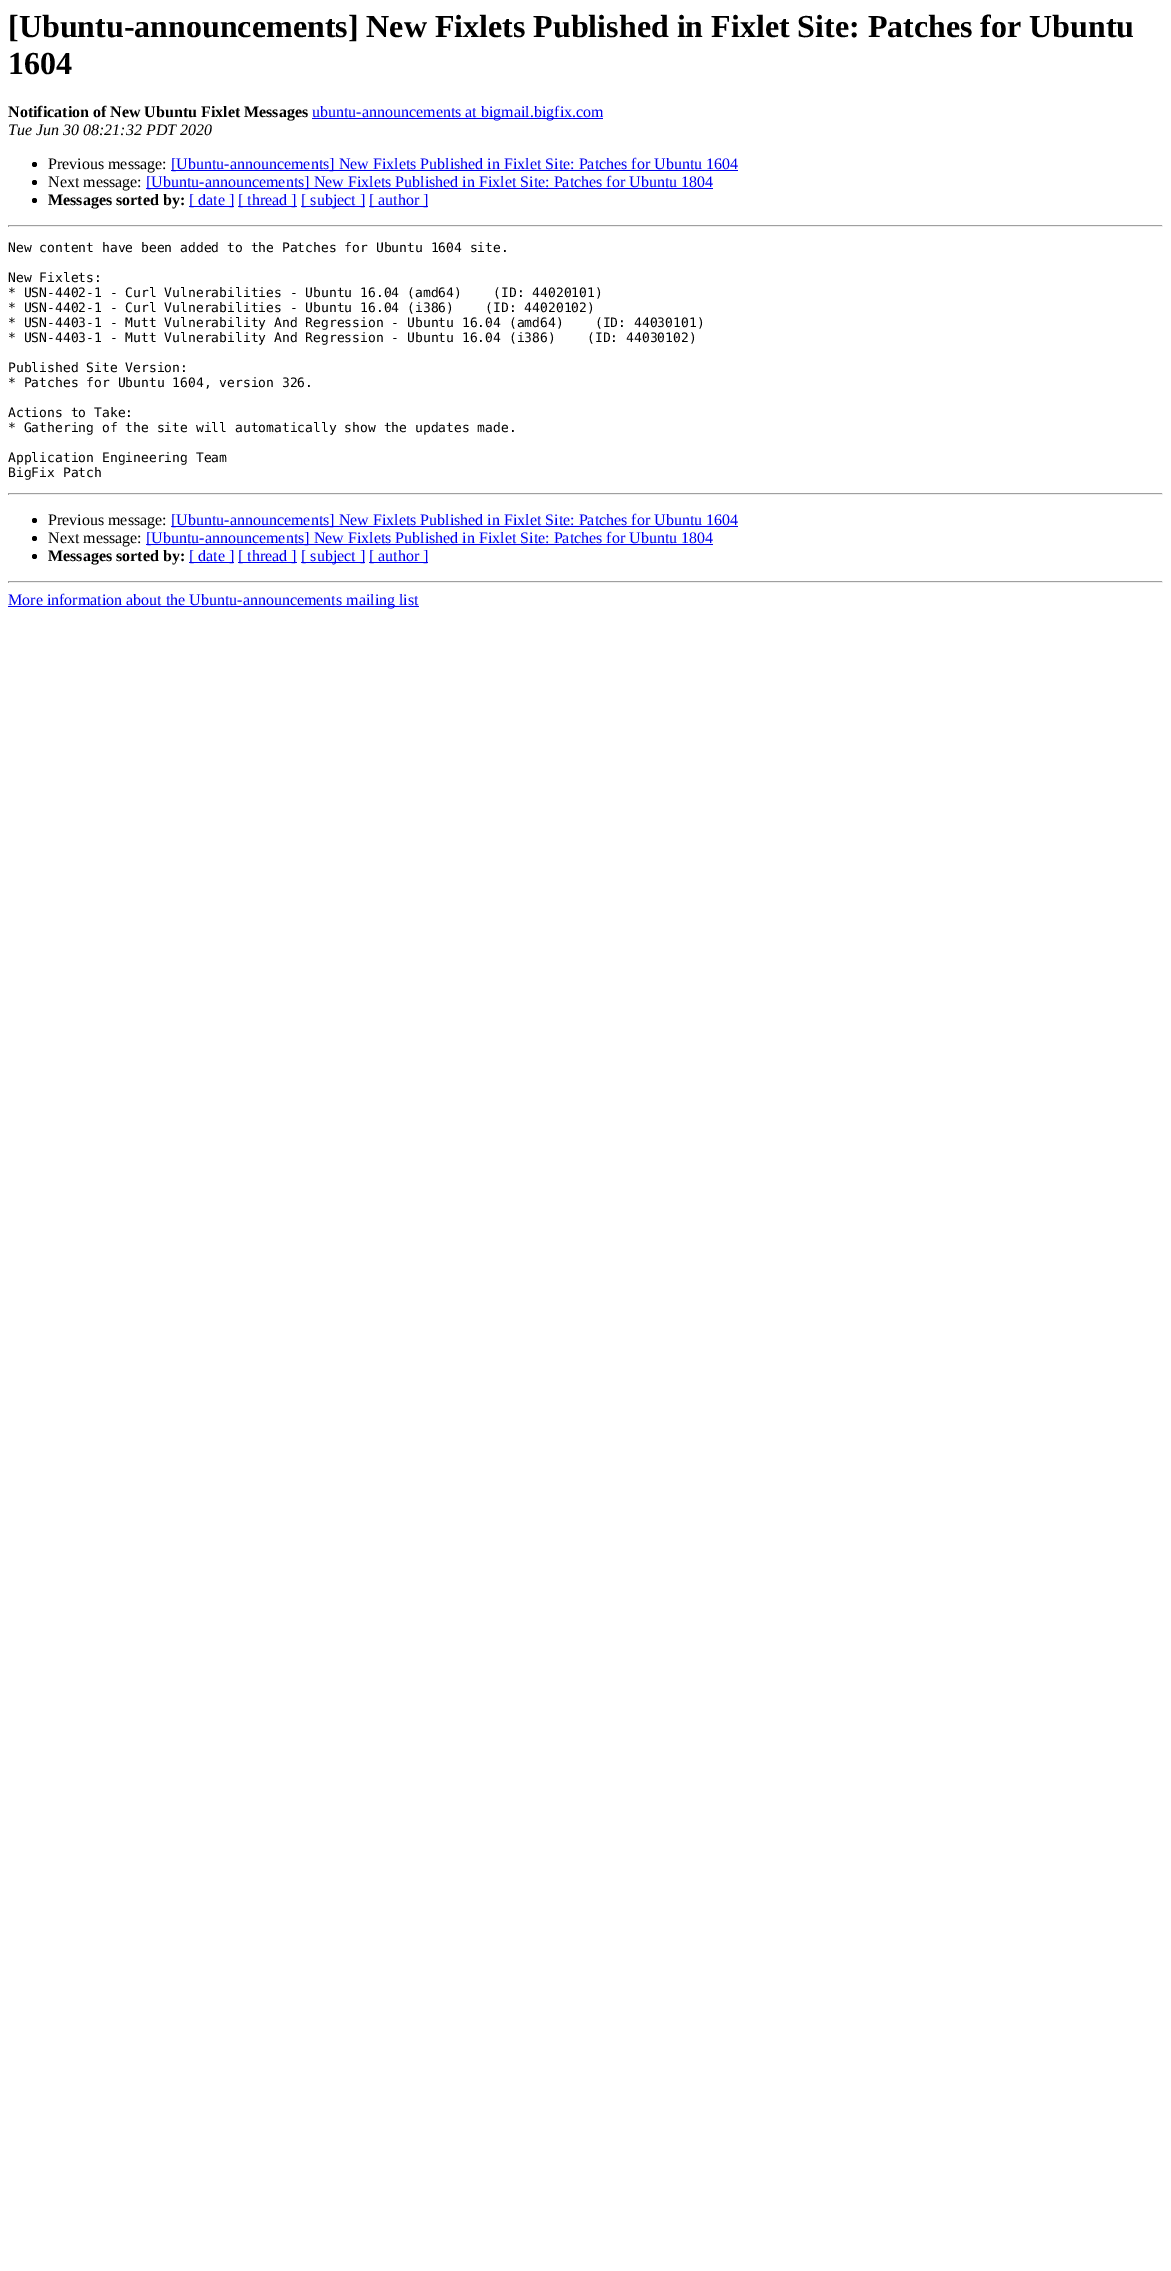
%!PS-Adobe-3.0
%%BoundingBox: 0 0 1171 2271
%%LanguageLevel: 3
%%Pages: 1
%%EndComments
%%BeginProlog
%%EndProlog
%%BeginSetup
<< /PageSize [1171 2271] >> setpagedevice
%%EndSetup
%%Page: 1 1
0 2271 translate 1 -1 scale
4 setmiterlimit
1 setgray
0 0 1171 2271 rectfill
0 0 0.933 setrgbcolor
312 118 291 1 rectfill
0 setgray
newpath 34.5 164.5 2.5 0 360 arc closepath fill
0 0 0.933 setrgbcolor
171 170 567 1 rectfill
0 setgray
newpath 34.5 182.5 2.5 0 360 arc closepath fill
0 0 0.933 setrgbcolor
146 188 567 1 rectfill
0 setgray
newpath 34.5 200.5 2.5 0 360 arc closepath fill
0 0 0.933 setrgbcolor
189 206 45 1 rectfill
238 206 59 1 rectfill
301 206 64 1 rectfill
369 206 59 1 rectfill
0.624 setgray
8 225 1155 1 rectfill
0.933 setgray
1162 225 1 2 rectfill
8 226 1155 1 rectfill
0.624 setgray
8 225 1 2 rectfill
8 493 1155 1 rectfill
0.933 setgray
1162 493 1 2 rectfill
8 494 1155 1 rectfill
0.624 setgray
8 493 1 2 rectfill
0 setgray
newpath 34.5 520.5 2.5 0 360 arc closepath fill
0 0 0.933 setrgbcolor
171 526 567 1 rectfill
0 setgray
newpath 34.5 538.5 2.5 0 360 arc closepath fill
0 0 0.933 setrgbcolor
146 544 567 1 rectfill
0 setgray
newpath 34.5 556.5 2.5 0 360 arc closepath fill
0 0 0.933 setrgbcolor
189 562 45 1 rectfill
238 562 59 1 rectfill
301 562 64 1 rectfill
369 562 59 1 rectfill
0.624 setgray
8 581 1155 1 rectfill
0.933 setgray
1162 581 1 2 rectfill
8 582 1155 1 rectfill
0.624 setgray
8 581 1 2 rectfill
0 0 0.933 setrgbcolor
8 606 411 1 rectfill
/LiberationSerif-Bold [32 0 0 -32 0 0] selectfont
0 setgray
8 37 moveto ([Ubuntu-announcements] New Fixlets Published in Fixlet Site: Patches for Ubuntu) show
8 74 moveto (1604) show
/LiberationSerif-Bold [16 0 0 -16 0 0] selectfont
8 117 moveto (Notification of New Ubuntu Fixlet Messages) show
/LiberationSerif-Regular [16 0 0 -16 0 0] selectfont
0 0 0.933 setrgbcolor
312 117 moveto (ubuntu-announcements at bigmail.bigfix.com) show
/LiberationSerif-Italic [16 0 0 -16 0 0] selectfont
0 setgray
8 135 moveto (Tue Jun 30 08:21:32 PDT 2020) show
/LiberationSerif-Regular [16 0 0 -16 0 0] selectfont
48 169 moveto (Previous message:) show
0 0 0.933 setrgbcolor
171 169 moveto ([Ubuntu-announcements] New Fixlets Published in Fixlet Site: Patches for Ubuntu 1604) show
0 setgray
48 187 moveto (Next message:) show
0 0 0.933 setrgbcolor
146 187 moveto ([Ubuntu-announcements] New Fixlets Published in Fixlet Site: Patches for Ubuntu 1804) show
/LiberationSerif-Bold [16 0 0 -16 0 0] selectfont
0 setgray
48 205 moveto (Messages sorted by:) show
/LiberationSerif-Regular [16 0 0 -16 0 0] selectfont
0 0 0.933 setrgbcolor
189 205 moveto ([ date ]) show
238 205 moveto ([ thread ]) show
301 205 moveto ([ subject ]) show
369 205 moveto ([ author ]) show
/DejaVuSansMono-Regular [13 0 0 -13 0 0] selectfont
0 setgray
8 252 moveto (New content have been added to the Patches for Ubuntu 1604 site.) show
8 282 moveto (New Fixlets:) show
8 297 moveto (* USN-4402-1 - Curl Vulnerabilities - Ubuntu 16.04 \(amd64\)    \(ID: 44020101\)) show
8 312 moveto (* USN-4402-1 - Curl Vulnerabilities - Ubuntu 16.04 \(i386\)    \(ID: 44020102\)) show
8 327 moveto (* USN-4403-1 - Mutt Vulnerability And Regression - Ubuntu 16.04 \(amd64\)    \(ID: 44030101\)) show
8 342 moveto (* USN-4403-1 - Mutt Vulnerability And Regression - Ubuntu 16.04 \(i386\)    \(ID: 44030102\)) show
8 372 moveto (Published Site Version:) show
8 387 moveto (* Patches for Ubuntu 1604, version 326.) show
8 417 moveto (Actions to Take:) show
8 432 moveto (* Gathering of the site will automatically show the updates made.) show
8 462 moveto (Application Engineering Team) show
8 477 moveto (BigFix Patch) show
/LiberationSerif-Regular [16 0 0 -16 0 0] selectfont
48 525 moveto (Previous message:) show
0 0 0.933 setrgbcolor
171 525 moveto ([Ubuntu-announcements] New Fixlets Published in Fixlet Site: Patches for Ubuntu 1604) show
0 setgray
48 543 moveto (Next message:) show
0 0 0.933 setrgbcolor
146 543 moveto ([Ubuntu-announcements] New Fixlets Published in Fixlet Site: Patches for Ubuntu 1804) show
/LiberationSerif-Bold [16 0 0 -16 0 0] selectfont
0 setgray
48 561 moveto (Messages sorted by:) show
/LiberationSerif-Regular [16 0 0 -16 0 0] selectfont
0 0 0.933 setrgbcolor
189 561 moveto ([ date ]) show
238 561 moveto ([ thread ]) show
301 561 moveto ([ subject ]) show
369 561 moveto ([ author ]) show
8 605 moveto (More information about the Ubuntu-announcements mailing list) show
showpage
%%EOF
